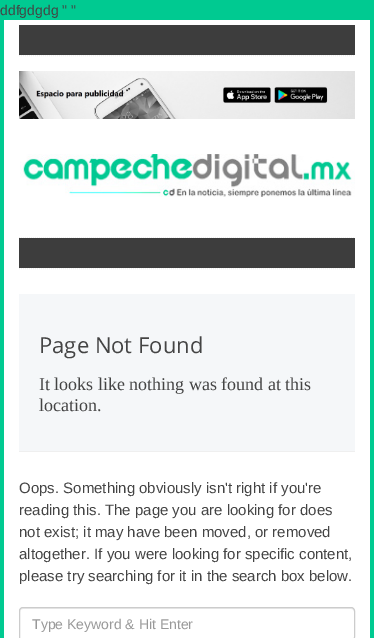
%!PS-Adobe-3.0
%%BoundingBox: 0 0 374 638
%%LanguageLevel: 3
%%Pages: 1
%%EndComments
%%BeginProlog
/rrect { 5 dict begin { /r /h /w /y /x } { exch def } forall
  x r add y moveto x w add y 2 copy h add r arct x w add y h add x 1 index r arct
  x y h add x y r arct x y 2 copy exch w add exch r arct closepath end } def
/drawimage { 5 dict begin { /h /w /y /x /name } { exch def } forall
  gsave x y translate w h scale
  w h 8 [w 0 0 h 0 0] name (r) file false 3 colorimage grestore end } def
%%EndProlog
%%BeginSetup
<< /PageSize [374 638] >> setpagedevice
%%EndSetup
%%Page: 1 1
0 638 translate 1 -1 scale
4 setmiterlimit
0 0.792 0.569 setrgbcolor
0 0 374 638 rectfill
1 setgray
4 20 366 618 rectfill
0.937 setgray
[1 1] 0 setdash
newpath 19 55.5 moveto 355 55.5 lineto stroke
0.239 setgray
19 25 336 30 rectfill
(images/1.raw) 19 71 336 48 drawimage
(images/2.raw) 20 154 335 43 drawimage
0.937 setgray
newpath 19 237.5 moveto 355 237.5 lineto stroke
newpath 19 268.5 moveto 355 268.5 lineto stroke
0.239 setgray
19 238 336 30 rectfill
0.961 0.969 0.976 setrgbcolor
19 294 336 157 rectfill
0.937 setgray
19 451 336 1 rectfill
0.925 setgray
newpath 23 609 moveto 351 609 lineto 353 609 354 610 354 612 curveto 354 610 353 608 351 608 curveto 23 608 lineto 21 608 20 610 20 612 curveto 20 610 21 609 23 609 curveto closepath fill
0.8 setgray
[] 0 setdash
19.5 607.5 335 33 3.5 rrect stroke
/LiberationSans-Regular [14 0 0 -14 0 0] selectfont
0.267 setgray
0 15 moveto (ddfgdgdg " ") show
/OpenSans-Regular [22 0 0 -22 0 0] selectfont
39 353 moveto (Page Not Found) show
/LiberationSerif-Regular [18 0 0 -18 0 0] selectfont
39 390 moveto (It looks like nothing was found at this) show
39 411 moveto (location.) show
/LiberationSans-Regular [15 0 0 -15 0 0] selectfont
19 493 moveto (Oops. Something obviously isn't right if you're) show
19 515 moveto (reading this. The page you are looking for does) show
19 537 moveto (not exist; it may have been moved, or removed) show
19 559 moveto (altogether. If you were looking for specific content,) show
19 581 moveto (please try searching for it in the search box below.) show
/LiberationSans-Regular [14 0 0 -14 0 0] selectfont
0.6 setgray
32 629 moveto (Type Keyword & Hit Enter) show
showpage
%%EOF
